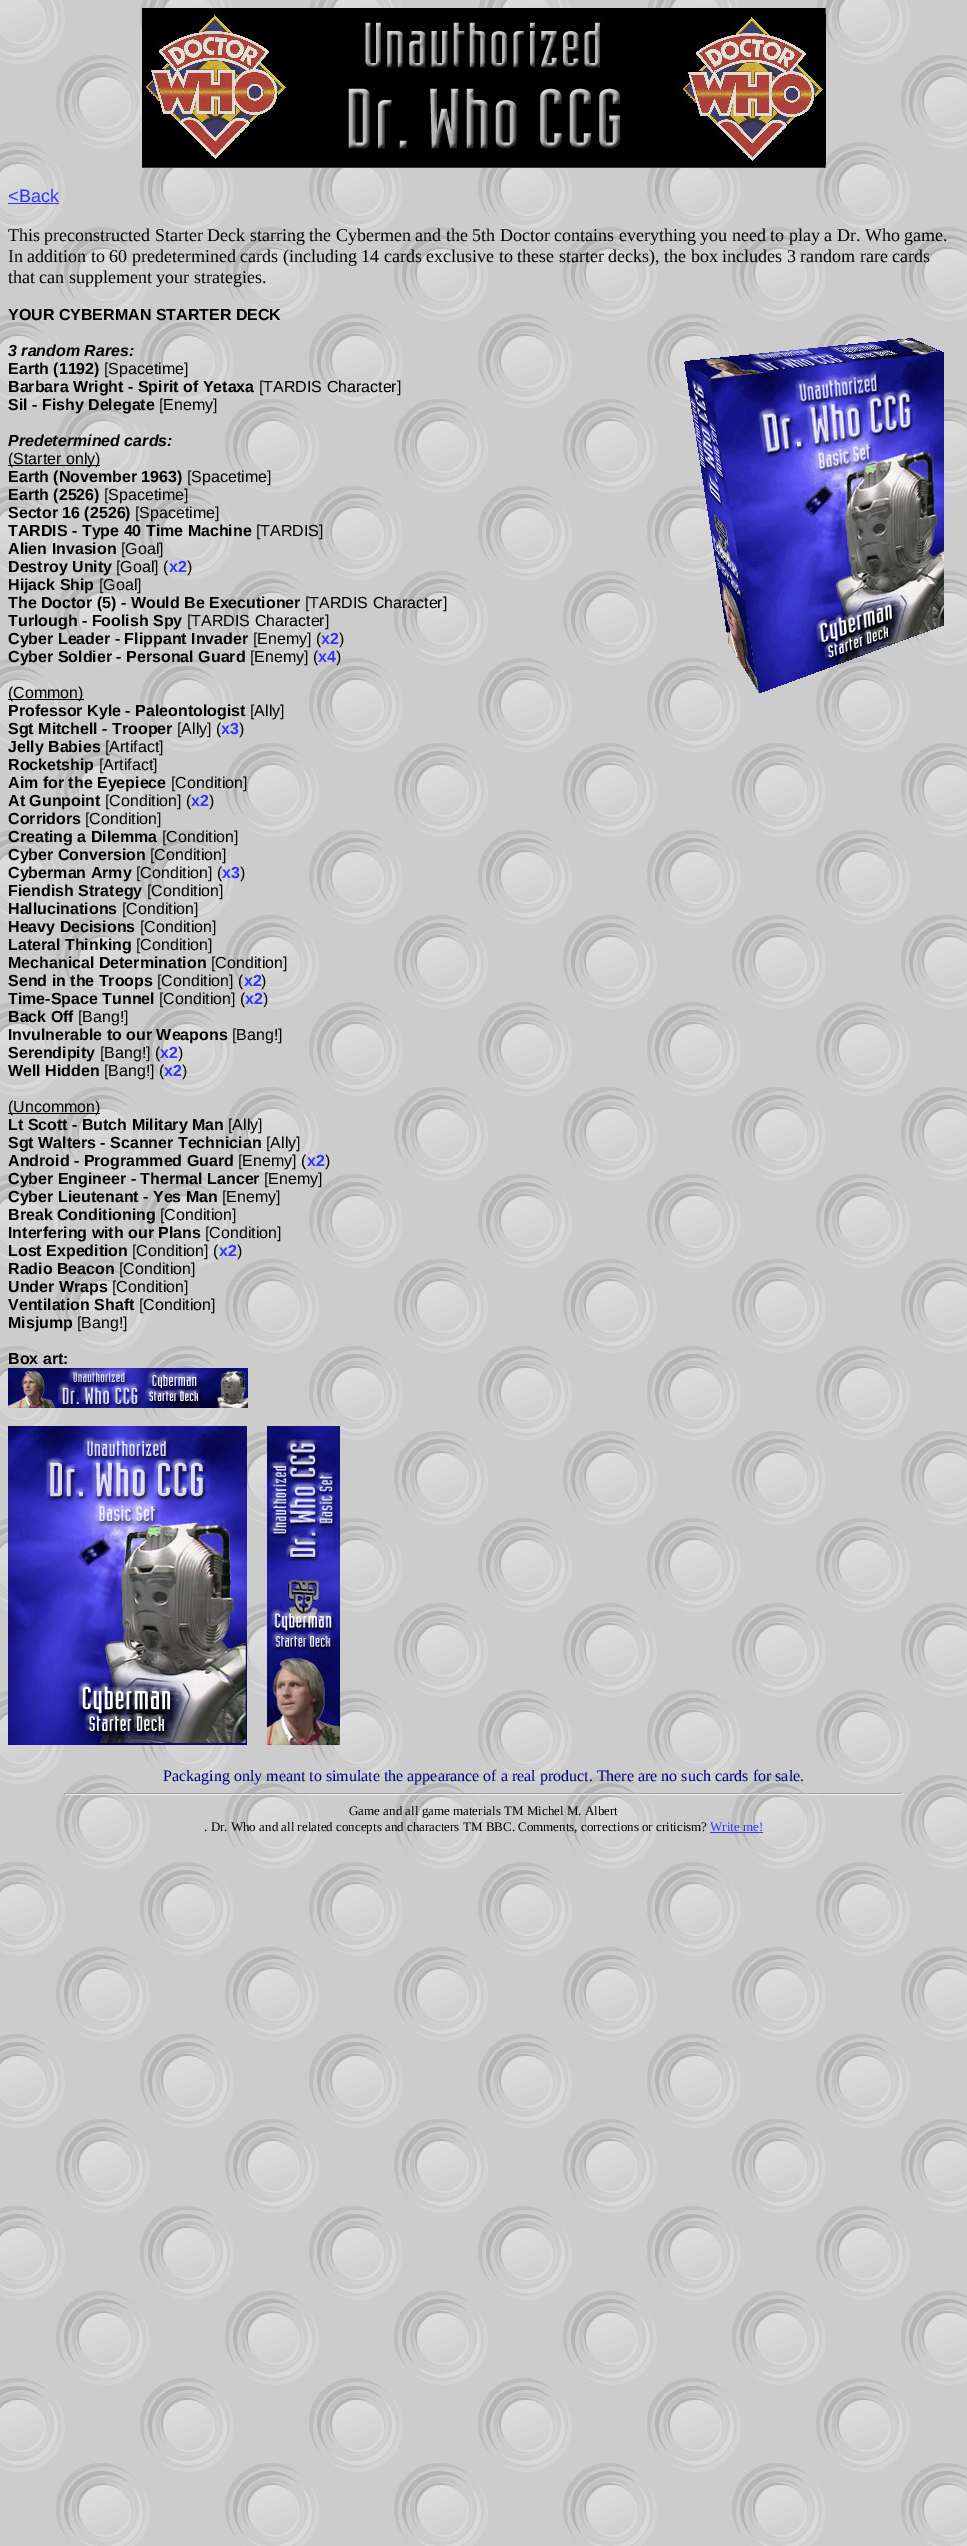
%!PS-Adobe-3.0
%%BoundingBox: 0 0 967 2546
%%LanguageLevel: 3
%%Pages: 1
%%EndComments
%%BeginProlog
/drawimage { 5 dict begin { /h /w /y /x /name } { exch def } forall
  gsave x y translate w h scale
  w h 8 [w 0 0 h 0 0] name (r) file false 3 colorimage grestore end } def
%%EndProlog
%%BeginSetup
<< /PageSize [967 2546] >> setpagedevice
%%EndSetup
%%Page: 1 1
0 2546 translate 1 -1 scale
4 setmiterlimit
1 setgray
0 0 967 2546 rectfill
(images/1.raw) 0 0 967 2546 drawimage
(images/2.raw) 142 8 684 160 drawimage
0.2 0.2 1 setrgbcolor
8 203 51 1 rectfill
(images/3.raw) 684 338 260 355 drawimage
0 setgray
8 465 92 1 rectfill
8 699 76 1 rectfill
8 1113 92 1 rectfill
(images/4.raw) 8 1368 240 40 drawimage
(images/5.raw) 8 1426 239 319 drawimage
(images/6.raw) 267 1426 73 319 drawimage
0.624 setgray
64 1793 839 1 rectfill
0.933 setgray
902 1793 1 2 rectfill
64 1794 839 1 rectfill
0.624 setgray
64 1793 1 2 rectfill
0.2 0.2 1 setrgbcolor
710 1832 53 1 rectfill
/LiberationSans-Regular [18 0 0 -18 0 0] selectfont
8 202 moveto (<Back) show
/LiberationSerif-Regular [18 0 0 -18 0 0] selectfont
0 setgray
8 241 moveto (This preconstructed Starter Deck starring the Cybermen and the 5th Doctor contains everything you need to play a Dr. Who game.) show
8 262 moveto (In addition to 60 predetermined cards \(including 14 cards exclusive to these starter decks\), the box includes 3 random rare cards) show
8 283 moveto (that can supplement your strategies.) show
/LiberationSans-Bold [16 0 0 -16 0 0] selectfont
8 320 moveto (YOUR CYBERMAN STARTER DECK) show
/LiberationSans-BoldItalic [16 0 0 -16 0 0] selectfont
8 356 moveto (3 random Rares:) show
/LiberationSans-Bold [16 0 0 -16 0 0] selectfont
8 374 moveto (Earth \(1192\)) show
/LiberationSans-Regular [16 0 0 -16 0 0] selectfont
104 374 moveto ([Spacetime]) show
/LiberationSans-Bold [16 0 0 -16 0 0] selectfont
8 392 moveto (Barbara Wright - Spirit of Yetaxa) show
/LiberationSans-Regular [16 0 0 -16 0 0] selectfont
259 392 moveto ([TARDIS Character]) show
/LiberationSans-Bold [16 0 0 -16 0 0] selectfont
8 410 moveto (Sil - Fishy Delegate) show
/LiberationSans-Regular [16 0 0 -16 0 0] selectfont
159 410 moveto ([Enemy]) show
/LiberationSans-BoldItalic [16 0 0 -16 0 0] selectfont
8 446 moveto (Predetermined cards:) show
/LiberationSans-Regular [16 0 0 -16 0 0] selectfont
8 464 moveto (\(Starter only\)) show
/LiberationSans-Bold [16 0 0 -16 0 0] selectfont
8 482 moveto (Earth \(November 1963\)) show
/LiberationSans-Regular [16 0 0 -16 0 0] selectfont
187 482 moveto ([Spacetime]) show
/LiberationSans-Bold [16 0 0 -16 0 0] selectfont
8 500 moveto (Earth \(2526\)) show
/LiberationSans-Regular [16 0 0 -16 0 0] selectfont
104 500 moveto ([Spacetime]) show
/LiberationSans-Bold [16 0 0 -16 0 0] selectfont
8 518 moveto (Sector 16 \(2526\)) show
/LiberationSans-Regular [16 0 0 -16 0 0] selectfont
135 518 moveto ([Spacetime]) show
/LiberationSans-Bold [16 0 0 -16 0 0] selectfont
8 536 moveto (TARDIS - Type 40 Time Machine) show
/LiberationSans-Regular [16 0 0 -16 0 0] selectfont
256 536 moveto ([TARDIS]) show
/LiberationSans-Bold [16 0 0 -16 0 0] selectfont
8 554 moveto (Alien Invasion) show
/LiberationSans-Regular [16 0 0 -16 0 0] selectfont
121 554 moveto ([Goal]) show
/LiberationSans-Bold [16 0 0 -16 0 0] selectfont
8 572 moveto (Destroy Unity) show
/LiberationSans-Regular [16 0 0 -16 0 0] selectfont
116 572 moveto ([Goal] \() show
/LiberationSans-Bold [16 0 0 -16 0 0] selectfont
0.2 0.2 1 setrgbcolor
169 572 moveto (x2) show
/LiberationSans-Regular [16 0 0 -16 0 0] selectfont
0 setgray
187 572 moveto (\)) show
/LiberationSans-Bold [16 0 0 -16 0 0] selectfont
8 590 moveto (Hijack Ship) show
/LiberationSans-Regular [16 0 0 -16 0 0] selectfont
99 590 moveto ([Goal]) show
/LiberationSans-Bold [16 0 0 -16 0 0] selectfont
8 608 moveto (The Doctor \(5\) - Would Be Executioner) show
/LiberationSans-Regular [16 0 0 -16 0 0] selectfont
305 608 moveto ([TARDIS Character]) show
/LiberationSans-Bold [16 0 0 -16 0 0] selectfont
8 626 moveto (Turlough - Foolish Spy) show
/LiberationSans-Regular [16 0 0 -16 0 0] selectfont
187 626 moveto ([TARDIS Character]) show
/LiberationSans-Bold [16 0 0 -16 0 0] selectfont
8 644 moveto (Cyber Leader - Flippant Invader) show
/LiberationSans-Regular [16 0 0 -16 0 0] selectfont
253 644 moveto ([Enemy] \() show
/LiberationSans-Bold [16 0 0 -16 0 0] selectfont
0.2 0.2 1 setrgbcolor
321 644 moveto (x2) show
/LiberationSans-Regular [16 0 0 -16 0 0] selectfont
0 setgray
339 644 moveto (\)) show
/LiberationSans-Bold [16 0 0 -16 0 0] selectfont
8 662 moveto (Cyber Soldier - Personal Guard) show
/LiberationSans-Regular [16 0 0 -16 0 0] selectfont
250 662 moveto ([Enemy] \() show
/LiberationSans-Bold [16 0 0 -16 0 0] selectfont
0.2 0.2 1 setrgbcolor
318 662 moveto (x4) show
/LiberationSans-Regular [16 0 0 -16 0 0] selectfont
0 setgray
336 662 moveto (\)) show
8 698 moveto (\(Common\)) show
/LiberationSans-Bold [16 0 0 -16 0 0] selectfont
8 716 moveto (Professor Kyle - Paleontologist) show
/LiberationSans-Regular [16 0 0 -16 0 0] selectfont
250 716 moveto ([Ally]) show
/LiberationSans-Bold [16 0 0 -16 0 0] selectfont
8 734 moveto (Sgt Mitchell - Trooper) show
/LiberationSans-Regular [16 0 0 -16 0 0] selectfont
177 734 moveto ([Ally] \() show
/LiberationSans-Bold [16 0 0 -16 0 0] selectfont
0.2 0.2 1 setrgbcolor
221 734 moveto (x3) show
/LiberationSans-Regular [16 0 0 -16 0 0] selectfont
0 setgray
239 734 moveto (\)) show
/LiberationSans-Bold [16 0 0 -16 0 0] selectfont
8 752 moveto (Jelly Babies) show
/LiberationSans-Regular [16 0 0 -16 0 0] selectfont
105 752 moveto ([Artifact]) show
/LiberationSans-Bold [16 0 0 -16 0 0] selectfont
8 770 moveto (Rocketship) show
/LiberationSans-Regular [16 0 0 -16 0 0] selectfont
99 770 moveto ([Artifact]) show
/LiberationSans-Bold [16 0 0 -16 0 0] selectfont
8 788 moveto (Aim for the Eyepiece) show
/LiberationSans-Regular [16 0 0 -16 0 0] selectfont
171 788 moveto ([Condition]) show
/LiberationSans-Bold [16 0 0 -16 0 0] selectfont
8 806 moveto (At Gunpoint) show
/LiberationSans-Regular [16 0 0 -16 0 0] selectfont
105 806 moveto ([Condition] \() show
/LiberationSans-Bold [16 0 0 -16 0 0] selectfont
0.2 0.2 1 setrgbcolor
191 806 moveto (x2) show
/LiberationSans-Regular [16 0 0 -16 0 0] selectfont
0 setgray
209 806 moveto (\)) show
/LiberationSans-Bold [16 0 0 -16 0 0] selectfont
8 824 moveto (Corridors) show
/LiberationSans-Regular [16 0 0 -16 0 0] selectfont
85 824 moveto ([Condition]) show
/LiberationSans-Bold [16 0 0 -16 0 0] selectfont
8 842 moveto (Creating a Dilemma) show
/LiberationSans-Regular [16 0 0 -16 0 0] selectfont
162 842 moveto ([Condition]) show
/LiberationSans-Bold [16 0 0 -16 0 0] selectfont
8 860 moveto (Cyber Conversion) show
/LiberationSans-Regular [16 0 0 -16 0 0] selectfont
150 860 moveto ([Condition]) show
/LiberationSans-Bold [16 0 0 -16 0 0] selectfont
8 878 moveto (Cyberman Army) show
/LiberationSans-Regular [16 0 0 -16 0 0] selectfont
136 878 moveto ([Condition] \() show
/LiberationSans-Bold [16 0 0 -16 0 0] selectfont
0.2 0.2 1 setrgbcolor
222 878 moveto (x3) show
/LiberationSans-Regular [16 0 0 -16 0 0] selectfont
0 setgray
240 878 moveto (\)) show
/LiberationSans-Bold [16 0 0 -16 0 0] selectfont
8 896 moveto (Fiendish Strategy) show
/LiberationSans-Regular [16 0 0 -16 0 0] selectfont
147 896 moveto ([Condition]) show
/LiberationSans-Bold [16 0 0 -16 0 0] selectfont
8 914 moveto (Hallucinations) show
/LiberationSans-Regular [16 0 0 -16 0 0] selectfont
122 914 moveto ([Condition]) show
/LiberationSans-Bold [16 0 0 -16 0 0] selectfont
8 932 moveto (Heavy Decisions) show
/LiberationSans-Regular [16 0 0 -16 0 0] selectfont
140 932 moveto ([Condition]) show
/LiberationSans-Bold [16 0 0 -16 0 0] selectfont
8 950 moveto (Lateral Thinking) show
/LiberationSans-Regular [16 0 0 -16 0 0] selectfont
136 950 moveto ([Condition]) show
/LiberationSans-Bold [16 0 0 -16 0 0] selectfont
8 968 moveto (Mechanical Determination) show
/LiberationSans-Regular [16 0 0 -16 0 0] selectfont
211 968 moveto ([Condition]) show
/LiberationSans-Bold [16 0 0 -16 0 0] selectfont
8 986 moveto (Send in the Troops) show
/LiberationSans-Regular [16 0 0 -16 0 0] selectfont
157 986 moveto ([Condition] \() show
/LiberationSans-Bold [16 0 0 -16 0 0] selectfont
0.2 0.2 1 setrgbcolor
244 986 moveto (x2) show
/LiberationSans-Regular [16 0 0 -16 0 0] selectfont
0 setgray
261 986 moveto (\)) show
/LiberationSans-Bold [16 0 0 -16 0 0] selectfont
8 1004 moveto (Time-Space Tunnel) show
/LiberationSans-Regular [16 0 0 -16 0 0] selectfont
159 1004 moveto ([Condition] \() show
/LiberationSans-Bold [16 0 0 -16 0 0] selectfont
0.2 0.2 1 setrgbcolor
245 1004 moveto (x2) show
/LiberationSans-Regular [16 0 0 -16 0 0] selectfont
0 setgray
263 1004 moveto (\)) show
/LiberationSans-Bold [16 0 0 -16 0 0] selectfont
8 1022 moveto (Back Off) show
/LiberationSans-Regular [16 0 0 -16 0 0] selectfont
78 1022 moveto ([Bang!]) show
/LiberationSans-Bold [16 0 0 -16 0 0] selectfont
8 1040 moveto (Invulnerable to our Weapons) show
/LiberationSans-Regular [16 0 0 -16 0 0] selectfont
232 1040 moveto ([Bang!]) show
/LiberationSans-Bold [16 0 0 -16 0 0] selectfont
8 1058 moveto (Serendipity) show
/LiberationSans-Regular [16 0 0 -16 0 0] selectfont
100 1058 moveto ([Bang!] \() show
/LiberationSans-Bold [16 0 0 -16 0 0] selectfont
0.2 0.2 1 setrgbcolor
160 1058 moveto (x2) show
/LiberationSans-Regular [16 0 0 -16 0 0] selectfont
0 setgray
178 1058 moveto (\)) show
/LiberationSans-Bold [16 0 0 -16 0 0] selectfont
8 1076 moveto (Well Hidden) show
/LiberationSans-Regular [16 0 0 -16 0 0] selectfont
104 1076 moveto ([Bang!] \() show
/LiberationSans-Bold [16 0 0 -16 0 0] selectfont
0.2 0.2 1 setrgbcolor
164 1076 moveto (x2) show
/LiberationSans-Regular [16 0 0 -16 0 0] selectfont
0 setgray
182 1076 moveto (\)) show
8 1112 moveto (\(Uncommon\)) show
/LiberationSans-Bold [16 0 0 -16 0 0] selectfont
8 1130 moveto (Lt Scott - Butch Military Man) show
/LiberationSans-Regular [16 0 0 -16 0 0] selectfont
228 1130 moveto ([Ally]) show
/LiberationSans-Bold [16 0 0 -16 0 0] selectfont
8 1148 moveto (Sgt Walters - Scanner Technician) show
/LiberationSans-Regular [16 0 0 -16 0 0] selectfont
266 1148 moveto ([Ally]) show
/LiberationSans-Bold [16 0 0 -16 0 0] selectfont
8 1166 moveto (Android - Programmed Guard) show
/LiberationSans-Regular [16 0 0 -16 0 0] selectfont
238 1166 moveto ([Enemy] \() show
/LiberationSans-Bold [16 0 0 -16 0 0] selectfont
0.2 0.2 1 setrgbcolor
307 1166 moveto (x2) show
/LiberationSans-Regular [16 0 0 -16 0 0] selectfont
0 setgray
325 1166 moveto (\)) show
/LiberationSans-Bold [16 0 0 -16 0 0] selectfont
8 1184 moveto (Cyber Engineer - Thermal Lancer) show
/LiberationSans-Regular [16 0 0 -16 0 0] selectfont
264 1184 moveto ([Enemy]) show
/LiberationSans-Bold [16 0 0 -16 0 0] selectfont
8 1202 moveto (Cyber Lieutenant - Yes Man) show
/LiberationSans-Regular [16 0 0 -16 0 0] selectfont
222 1202 moveto ([Enemy]) show
/LiberationSans-Bold [16 0 0 -16 0 0] selectfont
8 1220 moveto (Break Conditioning) show
/LiberationSans-Regular [16 0 0 -16 0 0] selectfont
160 1220 moveto ([Condition]) show
/LiberationSans-Bold [16 0 0 -16 0 0] selectfont
8 1238 moveto (Interfering with our Plans) show
/LiberationSans-Regular [16 0 0 -16 0 0] selectfont
205 1238 moveto ([Condition]) show
/LiberationSans-Bold [16 0 0 -16 0 0] selectfont
8 1256 moveto (Lost Expedition) show
/LiberationSans-Regular [16 0 0 -16 0 0] selectfont
132 1256 moveto ([Condition] \() show
/LiberationSans-Bold [16 0 0 -16 0 0] selectfont
0.2 0.2 1 setrgbcolor
219 1256 moveto (x2) show
/LiberationSans-Regular [16 0 0 -16 0 0] selectfont
0 setgray
237 1256 moveto (\)) show
/LiberationSans-Bold [16 0 0 -16 0 0] selectfont
8 1274 moveto (Radio Beacon) show
/LiberationSans-Regular [16 0 0 -16 0 0] selectfont
119 1274 moveto ([Condition]) show
/LiberationSans-Bold [16 0 0 -16 0 0] selectfont
8 1292 moveto (Under Wraps) show
/LiberationSans-Regular [16 0 0 -16 0 0] selectfont
112 1292 moveto ([Condition]) show
/LiberationSans-Bold [16 0 0 -16 0 0] selectfont
8 1310 moveto (Ventilation Shaft) show
/LiberationSans-Regular [16 0 0 -16 0 0] selectfont
139 1310 moveto ([Condition]) show
/LiberationSans-Bold [16 0 0 -16 0 0] selectfont
8 1328 moveto (Misjump) show
/LiberationSans-Regular [16 0 0 -16 0 0] selectfont
77 1328 moveto ([Bang!]) show
/LiberationSans-Bold [16 0 0 -16 0 0] selectfont
8 1364 moveto (Box art:) show
/LiberationSerif-Regular [16 0 0 -16 0 0] selectfont
0 0 0.502 setrgbcolor
163 1781 moveto (Packaging only meant to simulate the appearance of a real product. There are no such cards for sale.) show
/LiberationSerif-Regular [13 0 0 -13 0 0] selectfont
0 setgray
349 1815 moveto (Game and all game materials TM Michel M. Albert) show
204 1831 moveto (. Dr. Who and all related concepts and characters TM BBC. Comments, corrections or criticism?) show
0.2 0.2 1 setrgbcolor
710 1831 moveto (Write me!) show
showpage
%%EOF
